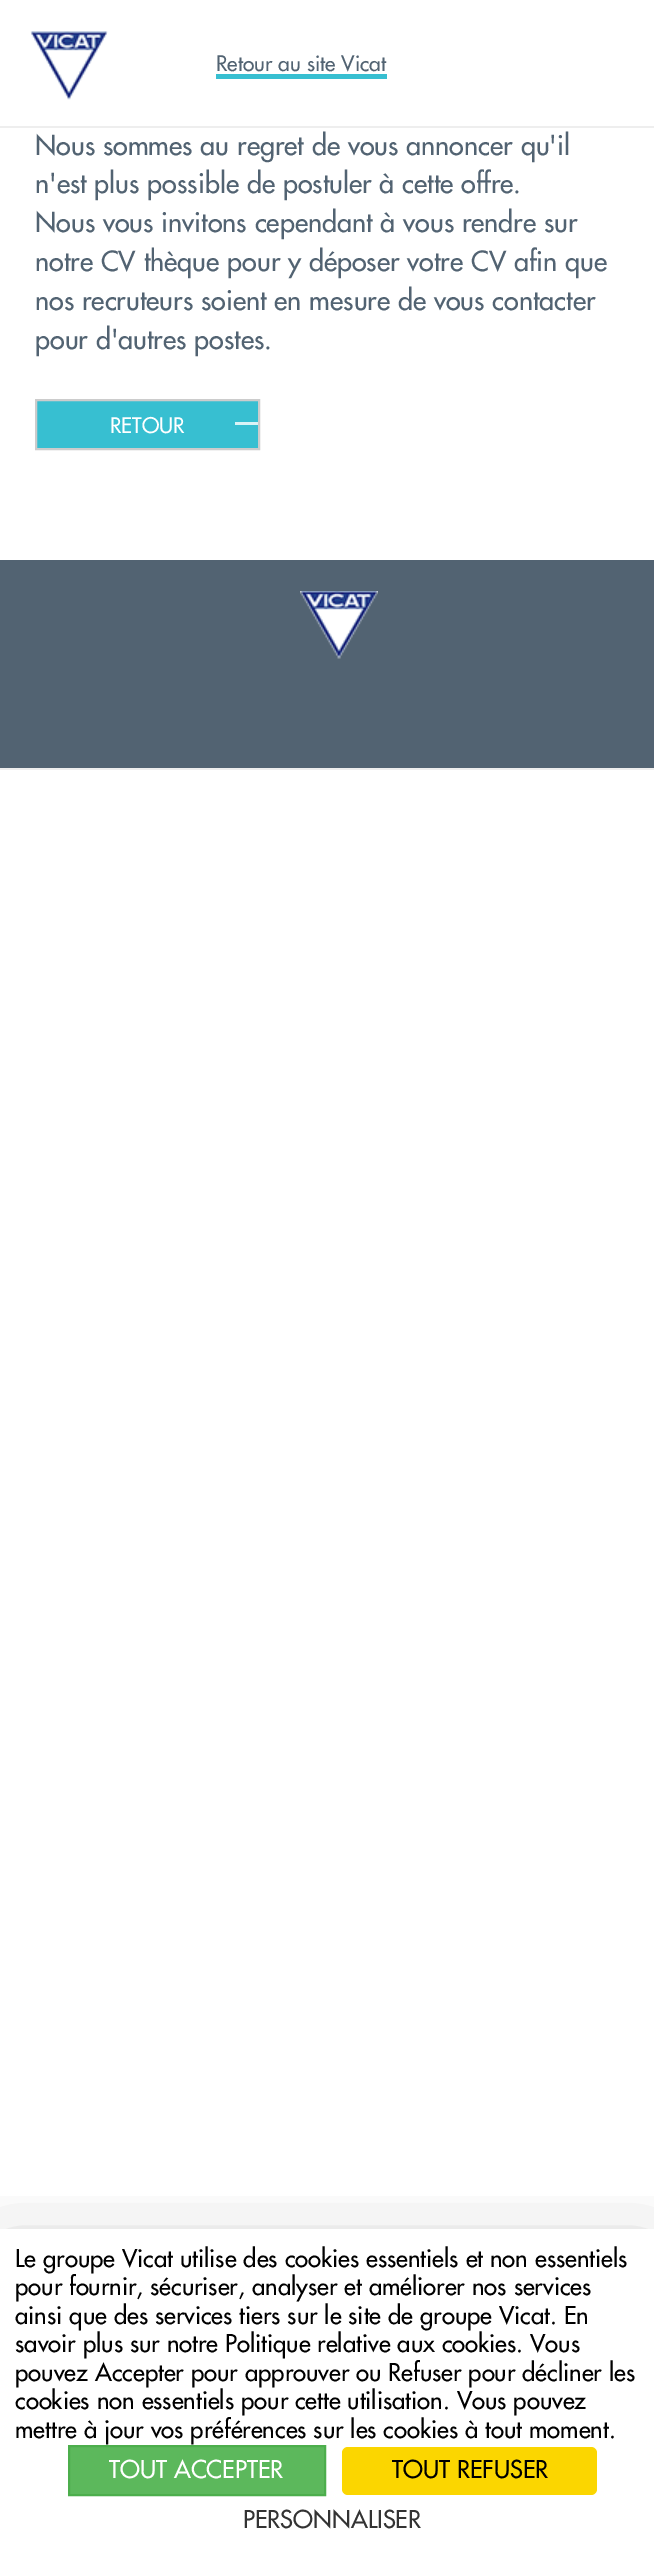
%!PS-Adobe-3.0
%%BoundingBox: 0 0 654 2558
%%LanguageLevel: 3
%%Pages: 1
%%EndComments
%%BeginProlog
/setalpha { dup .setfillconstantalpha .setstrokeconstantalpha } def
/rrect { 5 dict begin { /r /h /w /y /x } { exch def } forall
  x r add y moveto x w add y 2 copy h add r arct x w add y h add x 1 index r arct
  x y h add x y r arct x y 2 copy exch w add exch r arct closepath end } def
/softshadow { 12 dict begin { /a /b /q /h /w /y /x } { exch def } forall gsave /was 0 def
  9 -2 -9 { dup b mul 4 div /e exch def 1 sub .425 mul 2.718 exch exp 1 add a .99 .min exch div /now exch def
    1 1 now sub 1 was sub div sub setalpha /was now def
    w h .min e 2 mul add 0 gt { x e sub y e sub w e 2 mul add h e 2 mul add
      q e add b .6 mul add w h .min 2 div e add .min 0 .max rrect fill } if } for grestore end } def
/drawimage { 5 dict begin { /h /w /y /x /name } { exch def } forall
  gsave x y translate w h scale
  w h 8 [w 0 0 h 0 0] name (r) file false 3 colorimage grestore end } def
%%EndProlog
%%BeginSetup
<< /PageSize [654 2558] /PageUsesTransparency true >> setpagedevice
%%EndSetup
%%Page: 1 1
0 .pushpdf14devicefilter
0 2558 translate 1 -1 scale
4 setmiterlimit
1 setgray
0 0 654 2558 rectfill
0.933 setgray
0 126 654 2 rectfill
(images/1.raw) 30 31 78 69 drawimage
0.216 0.749 0.82 setrgbcolor
216 74 171 5 rectfill
37 401 221 47 rectfill
0.851 0.953 0.965 setrgbcolor
235 422 23 3 rectfill
0.8 setgray
2 setlinewidth
36 400 223 49 rectstroke
0.322 0.388 0.447 setrgbcolor
0 560 654 208 rectfill
0.933 setgray
0 768 654 2 rectfill
(images/2.raw) 300 591 78 68 drawimage
gsave
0 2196 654 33 rectclip
0 setgray
0 2259 654 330 0 45 0.25 softshadow
grestore
0.361 0.722 0.361 setrgbcolor
newpath 69 2446 moveto 325 2446 lineto 325 2495 lineto 69 2495 lineto closepath gsave fill grestore
0.298 0.682 0.298 setrgbcolor
stroke
0.984 0.839 0 setrgbcolor
342 2447 255 48 6 rrect fill
/Futura-Medium [21 0 0 -21 0 0] selectfont
0.322 0.388 0.447 setrgbcolor
216 71 moveto (Retour au site Vicat) show
/Futura-Medium [27 0 0 -27 0 0] selectfont
35 155 moveto (Nous sommes au regret de vous annoncer qu'il) show
35 193 moveto (n'est plus possible de postuler à cette offre.) show
35 232 moveto (Nous vous invitons cependant à vous rendre sur) show
35 271 moveto (notre CV thèque pour y déposer votre CV afin que) show
35 310 moveto (nos recruteurs soient en mesure de vous contacter) show
35 349 moveto (pour d'autres postes.) show
/Futura-Medium [21 0 0 -21 0 0] selectfont
1 setgray
110 433 moveto (RETOUR) show
/Futura-Medium [24 0 0 -24 0 0] selectfont
0 setgray
15 2267 moveto (Le groupe Vicat utilise des cookies essentiels et non essentiels) show
15 2295 moveto (pour fournir, sécuriser, analyser et améliorer nos services) show
15 2324 moveto (ainsi que des services tiers sur le site de groupe Vicat. En) show
15 2352 moveto (savoir plus sur notre Politique relative aux cookies. Vous) show
15 2381 moveto (pouvez Accepter pour approuver ou Refuser pour décliner les) show
15 2409 moveto (cookies non essentiels pour cette utilisation. Vous pouvez) show
15 2438 moveto (mettre à jour vos préférences sur les cookies à tout moment.) show
1 setgray
109 2478 moveto (TOUT ACCEPTER) show
0 setgray
392 2478 moveto (TOUT REFUSER) show
0.2 setgray
243 2528 moveto (PERSONNALISER) show
.poppdf14devicefilter showpage
%%EOF
